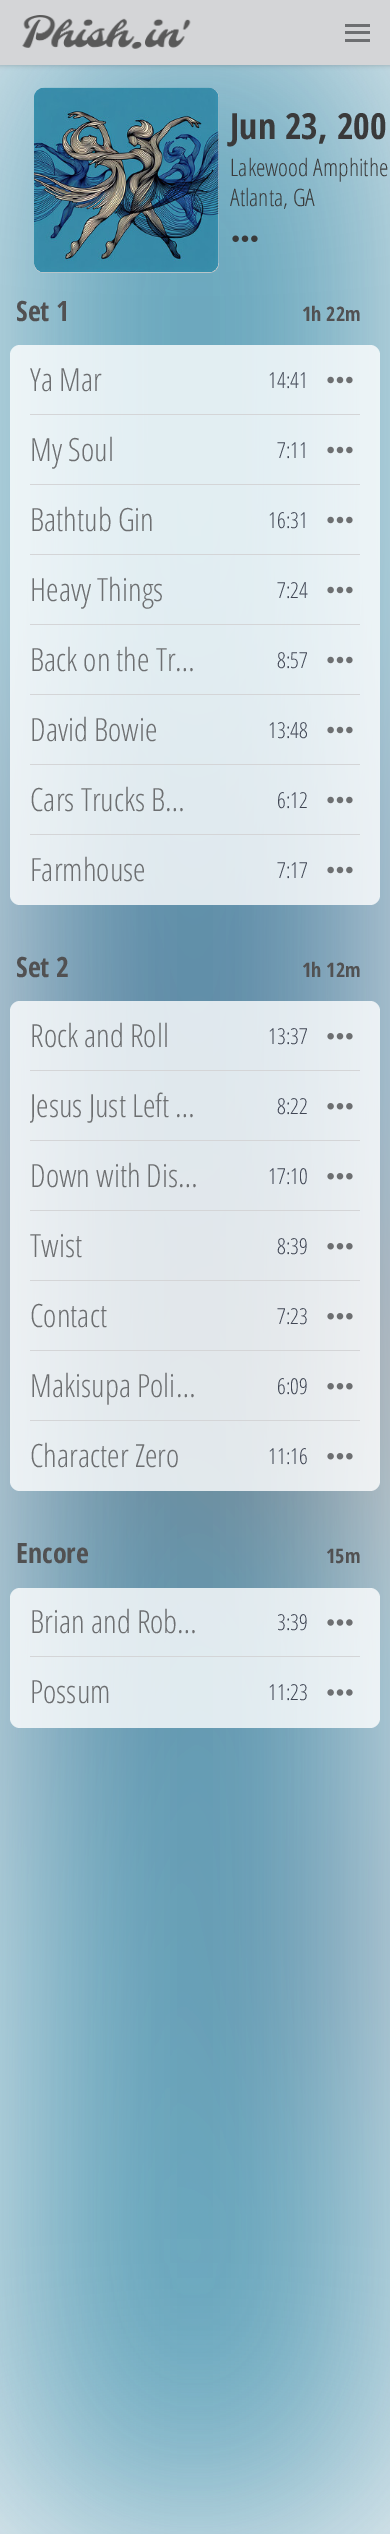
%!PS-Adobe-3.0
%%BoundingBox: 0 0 390 2534
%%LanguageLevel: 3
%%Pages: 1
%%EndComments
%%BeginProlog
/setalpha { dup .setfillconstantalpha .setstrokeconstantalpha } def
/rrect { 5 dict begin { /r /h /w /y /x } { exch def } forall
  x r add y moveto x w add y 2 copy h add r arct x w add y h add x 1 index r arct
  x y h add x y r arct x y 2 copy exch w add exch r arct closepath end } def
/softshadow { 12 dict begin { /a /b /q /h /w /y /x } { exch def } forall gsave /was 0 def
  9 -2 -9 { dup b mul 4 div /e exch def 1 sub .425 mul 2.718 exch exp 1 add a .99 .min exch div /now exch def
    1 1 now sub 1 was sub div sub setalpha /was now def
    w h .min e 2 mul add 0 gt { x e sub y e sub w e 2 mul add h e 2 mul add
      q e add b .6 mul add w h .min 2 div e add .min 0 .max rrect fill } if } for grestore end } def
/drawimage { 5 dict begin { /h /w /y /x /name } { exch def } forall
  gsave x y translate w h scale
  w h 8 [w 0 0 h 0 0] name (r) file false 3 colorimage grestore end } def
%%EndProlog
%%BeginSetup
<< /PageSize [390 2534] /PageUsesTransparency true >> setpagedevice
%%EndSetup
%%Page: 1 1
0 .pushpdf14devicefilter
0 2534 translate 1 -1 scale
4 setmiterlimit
0.949 0.953 0.961 setrgbcolor
0 0 390 2534 rectfill
(images/2.raw) 0 65 390 2469 drawimage
0 setgray
0 1 390 65 0 2 0.15 softshadow
0.831 0.835 0.843 setrgbcolor
0 0 390 65 rectfill
(images/1.raw) 22 15 169 34 drawimage
0.427 0.435 0.443 setrgbcolor
345 24 25 3 rectfill
345 31 25 3 rectfill
345 39 25 3 rectfill
0.851 0.859 0.863 setrgbcolor
34 88 185 185 10 rrect fill
gsave
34 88 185 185 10 rrect clip newpath
0 setgray
36 90 185 185 10 2 0.15 softshadow
grestore
(images/3.raw) 34 87 185 186 drawimage
(images/4.raw) 232 235 26 7 drawimage
0.8 setalpha
1 setgray
newpath 20 345 moveto 370 345 lineto 375.5 345 380 349.5 380 355 curveto 380 415 lineto 10 415 lineto 10 355 lineto 10 349.5 14.5 345 20 345 curveto closepath fill
1 setalpha
(images/5.raw) 327 376 26 8 drawimage
0.831 0.835 0.843 setrgbcolor
30 414 330 1 rectfill
0.8 setalpha
1 setgray
10 415 370 70 rectfill
1 setalpha
(images/6.raw) 327 446 26 8 drawimage
0.831 0.835 0.843 setrgbcolor
30 484 330 1 rectfill
0.8 setalpha
1 setgray
10 485 370 70 rectfill
1 setalpha
(images/7.raw) 327 516 26 8 drawimage
0.831 0.835 0.843 setrgbcolor
30 554 330 1 rectfill
0.8 setalpha
1 setgray
10 555 370 70 rectfill
1 setalpha
(images/8.raw) 327 586 26 8 drawimage
0.831 0.835 0.843 setrgbcolor
30 624 330 1 rectfill
0.8 setalpha
1 setgray
10 625 370 70 rectfill
1 setalpha
(images/9.raw) 327 656 26 8 drawimage
0.831 0.835 0.843 setrgbcolor
30 694 330 1 rectfill
0.8 setalpha
1 setgray
10 695 370 70 rectfill
1 setalpha
(images/10.raw) 327 726 26 8 drawimage
0.831 0.835 0.843 setrgbcolor
30 764 330 1 rectfill
0.8 setalpha
1 setgray
10 765 370 70 rectfill
1 setalpha
(images/11.raw) 327 796 26 8 drawimage
0.831 0.835 0.843 setrgbcolor
30 834 330 1 rectfill
0.8 setalpha
1 setgray
newpath 10 835 moveto 380 835 lineto 380 895 lineto 380 900.5 375.5 905 370 905 curveto 20 905 lineto 14.5 905 10 900.5 10 895 curveto closepath fill
1 setalpha
(images/12.raw) 327 866 26 8 drawimage
0.8 setalpha
newpath 20 1001 moveto 370 1001 lineto 375.5 1001 380 1005.5 380 1011 curveto 380 1071 lineto 10 1071 lineto 10 1011 lineto 10 1005.5 14.5 1001 20 1001 curveto closepath fill
1 setalpha
(images/13.raw) 327 1033 26 7 drawimage
0.831 0.835 0.843 setrgbcolor
30 1070 330 1 rectfill
0.8 setalpha
1 setgray
10 1071 370 70 rectfill
1 setalpha
(images/14.raw) 327 1103 26 7 drawimage
0.831 0.835 0.843 setrgbcolor
30 1140 330 1 rectfill
0.8 setalpha
1 setgray
10 1141 370 70 rectfill
1 setalpha
(images/15.raw) 327 1173 26 7 drawimage
0.831 0.835 0.843 setrgbcolor
30 1210 330 1 rectfill
0.8 setalpha
1 setgray
10 1211 370 70 rectfill
1 setalpha
(images/16.raw) 327 1243 26 7 drawimage
0.831 0.835 0.843 setrgbcolor
30 1280 330 1 rectfill
0.8 setalpha
1 setgray
10 1281 370 70 rectfill
1 setalpha
(images/17.raw) 327 1313 26 7 drawimage
0.831 0.835 0.843 setrgbcolor
30 1350 330 1 rectfill
0.8 setalpha
1 setgray
10 1351 370 70 rectfill
1 setalpha
(images/18.raw) 327 1383 26 7 drawimage
0.831 0.835 0.843 setrgbcolor
30 1420 330 1 rectfill
0.8 setalpha
1 setgray
newpath 10 1421 moveto 380 1421 lineto 380 1481 lineto 380 1486.5 375.5 1491 370 1491 curveto 20 1491 lineto 14.5 1491 10 1486.5 10 1481 curveto closepath fill
1 setalpha
(images/19.raw) 327 1453 26 7 drawimage
0.8 setalpha
newpath 20 1588 moveto 370 1588 lineto 375.5 1588 380 1592.5 380 1598 curveto 380 1658 lineto 10 1658 lineto 10 1598 lineto 10 1592.5 14.5 1588 20 1588 curveto closepath fill
1 setalpha
(images/20.raw) 327 1619 26 7 drawimage
0.831 0.835 0.843 setrgbcolor
30 1656 330 1 rectfill
0.8 setalpha
1 setgray
newpath 10 1658 moveto 380 1658 lineto 380 1718 lineto 380 1723.5 375.5 1728 370 1728 curveto 20 1728 lineto 14.5 1728 10 1723.5 10 1718 curveto closepath fill
1 setalpha
(images/21.raw) 327 1689 26 7 drawimage
/OpenSansCondensed-Bold [36 0 0 -36 0 0] selectfont
0.227 setgray
230 139 moveto (Jun 23, 200) show
/OpenSansCondensed-Light [24 0 0 -24 0 0] selectfont
230 176 moveto (Lakewood Amphithe) show
230 206 moveto (Atlanta, GA) show
/OpenSansCondensed-Bold [28 0 0 -28 0 0] selectfont
0.318 0.318 0.322 setrgbcolor
16 321 moveto (Set 1) show
/OpenSansCondensed-Bold [20 0 0 -20 0 0] selectfont
302 321 moveto (1h 22m) show
/OpenSansCondensed-Light [32 0 0 -32 0 0] selectfont
0.427 0.435 0.443 setrgbcolor
30 391 moveto (Ya Mar) show
/OpenSansCondensed-Light [22 0 0 -22 0 0] selectfont
0.251 0.275 0.329 setrgbcolor
268 388 moveto (14:41) show
/OpenSansCondensed-Light [32 0 0 -32 0 0] selectfont
0.427 0.435 0.443 setrgbcolor
30 461 moveto (My Soul) show
/OpenSansCondensed-Light [22 0 0 -22 0 0] selectfont
0.251 0.275 0.329 setrgbcolor
277 458 moveto (7:11) show
/OpenSansCondensed-Light [32 0 0 -32 0 0] selectfont
0.427 0.435 0.443 setrgbcolor
30 531 moveto (Bathtub Gin) show
/OpenSansCondensed-Light [22 0 0 -22 0 0] selectfont
0.251 0.275 0.329 setrgbcolor
268 528 moveto (16:31) show
/OpenSansCondensed-Light [32 0 0 -32 0 0] selectfont
0.427 0.435 0.443 setrgbcolor
30 601 moveto (Heavy Things) show
/OpenSansCondensed-Light [22 0 0 -22 0 0] selectfont
0.251 0.275 0.329 setrgbcolor
277 598 moveto (7:24) show
/OpenSansCondensed-Light [32 0 0 -32 0 0] selectfont
0.427 0.435 0.443 setrgbcolor
30 671 moveto (Back on the Tr…) show
/OpenSansCondensed-Light [22 0 0 -22 0 0] selectfont
0.251 0.275 0.329 setrgbcolor
277 668 moveto (8:57) show
/OpenSansCondensed-Light [32 0 0 -32 0 0] selectfont
0.427 0.435 0.443 setrgbcolor
30 741 moveto (David Bowie) show
/OpenSansCondensed-Light [22 0 0 -22 0 0] selectfont
0.251 0.275 0.329 setrgbcolor
268 738 moveto (13:48) show
/OpenSansCondensed-Light [32 0 0 -32 0 0] selectfont
0.427 0.435 0.443 setrgbcolor
30 811 moveto (Cars Trucks B…) show
/OpenSansCondensed-Light [22 0 0 -22 0 0] selectfont
0.251 0.275 0.329 setrgbcolor
277 808 moveto (6:12) show
/OpenSansCondensed-Light [32 0 0 -32 0 0] selectfont
0.427 0.435 0.443 setrgbcolor
30 881 moveto (Farmhouse) show
/OpenSansCondensed-Light [22 0 0 -22 0 0] selectfont
0.251 0.275 0.329 setrgbcolor
277 878 moveto (7:17) show
/OpenSansCondensed-Bold [28 0 0 -28 0 0] selectfont
0.318 0.318 0.322 setrgbcolor
16 977 moveto (Set 2) show
/OpenSansCondensed-Bold [20 0 0 -20 0 0] selectfont
302 977 moveto (1h 12m) show
/OpenSansCondensed-Light [32 0 0 -32 0 0] selectfont
0.427 0.435 0.443 setrgbcolor
30 1047 moveto (Rock and Roll) show
/OpenSansCondensed-Light [22 0 0 -22 0 0] selectfont
0.251 0.275 0.329 setrgbcolor
268 1044 moveto (13:37) show
gsave
30 1083 170 47 rectclip
/OpenSansCondensed-Light [32 0 0 -32 0 0] selectfont
0.427 0.435 0.443 setrgbcolor
30 1117 moveto (Jesus Just Left …) show
grestore
277 1114 moveto (8:22) show
/OpenSansCondensed-Light [32 0 0 -32 0 0] selectfont
0.427 0.435 0.443 setrgbcolor
30 1187 moveto (Down with Dis…) show
/OpenSansCondensed-Light [22 0 0 -22 0 0] selectfont
0.251 0.275 0.329 setrgbcolor
268 1184 moveto (17:10) show
/OpenSansCondensed-Light [32 0 0 -32 0 0] selectfont
0.427 0.435 0.443 setrgbcolor
30 1257 moveto (Twist) show
/OpenSansCondensed-Light [22 0 0 -22 0 0] selectfont
0.251 0.275 0.329 setrgbcolor
277 1254 moveto (8:39) show
/OpenSansCondensed-Light [32 0 0 -32 0 0] selectfont
0.427 0.435 0.443 setrgbcolor
30 1327 moveto (Contact) show
/OpenSansCondensed-Light [22 0 0 -22 0 0] selectfont
0.251 0.275 0.329 setrgbcolor
277 1324 moveto (7:23) show
/OpenSansCondensed-Light [32 0 0 -32 0 0] selectfont
0.427 0.435 0.443 setrgbcolor
30 1397 moveto (Makisupa Poli…) show
/OpenSansCondensed-Light [22 0 0 -22 0 0] selectfont
0.251 0.275 0.329 setrgbcolor
277 1394 moveto (6:09) show
/OpenSansCondensed-Light [32 0 0 -32 0 0] selectfont
0.427 0.435 0.443 setrgbcolor
30 1467 moveto (Character Zero) show
/OpenSansCondensed-Light [22 0 0 -22 0 0] selectfont
0.251 0.275 0.329 setrgbcolor
268 1464 moveto (11:16) show
/OpenSansCondensed-Bold [28 0 0 -28 0 0] selectfont
0.318 0.318 0.322 setrgbcolor
16 1563 moveto (Encore) show
/OpenSansCondensed-Bold [20 0 0 -20 0 0] selectfont
326 1563 moveto (15m) show
/OpenSansCondensed-Light [32 0 0 -32 0 0] selectfont
0.427 0.435 0.443 setrgbcolor
30 1633 moveto (Brian and Rob…) show
/OpenSansCondensed-Light [22 0 0 -22 0 0] selectfont
0.251 0.275 0.329 setrgbcolor
277 1630 moveto (3:39) show
/OpenSansCondensed-Light [32 0 0 -32 0 0] selectfont
0.427 0.435 0.443 setrgbcolor
30 1703 moveto (Possum) show
/OpenSansCondensed-Light [22 0 0 -22 0 0] selectfont
0.251 0.275 0.329 setrgbcolor
268 1700 moveto (11:23) show
.poppdf14devicefilter showpage
%%EOF
